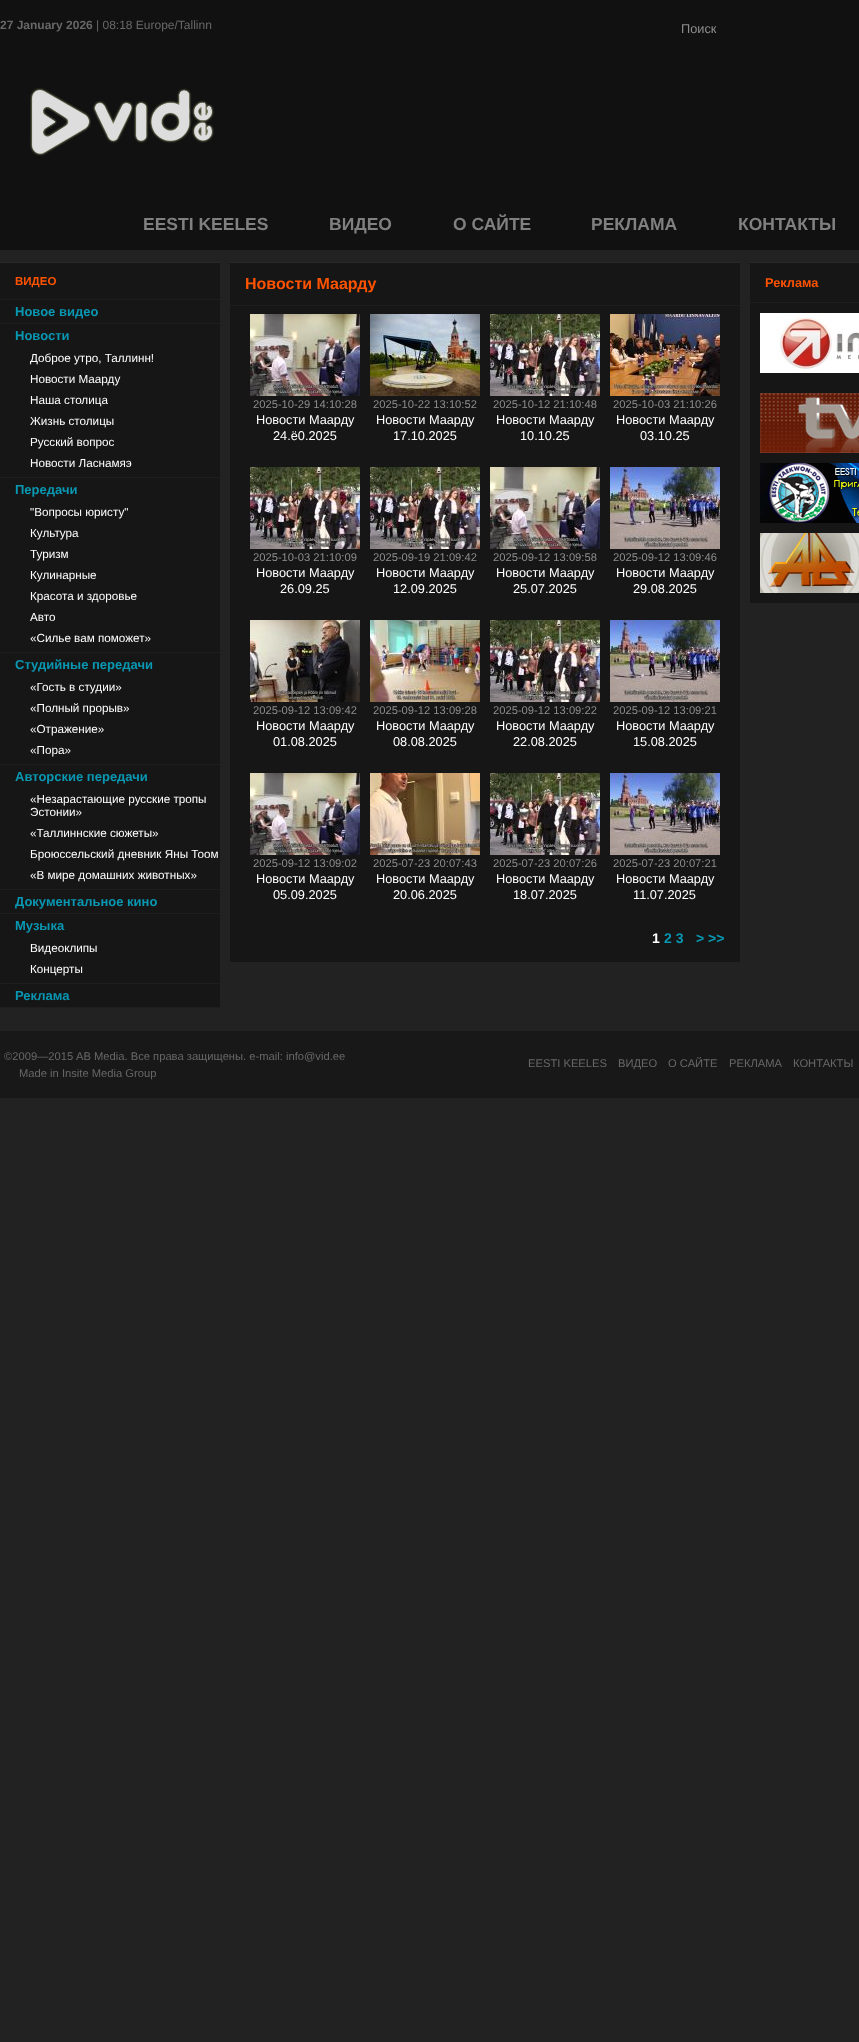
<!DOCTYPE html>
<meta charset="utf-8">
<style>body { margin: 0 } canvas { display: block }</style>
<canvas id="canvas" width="859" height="2042"></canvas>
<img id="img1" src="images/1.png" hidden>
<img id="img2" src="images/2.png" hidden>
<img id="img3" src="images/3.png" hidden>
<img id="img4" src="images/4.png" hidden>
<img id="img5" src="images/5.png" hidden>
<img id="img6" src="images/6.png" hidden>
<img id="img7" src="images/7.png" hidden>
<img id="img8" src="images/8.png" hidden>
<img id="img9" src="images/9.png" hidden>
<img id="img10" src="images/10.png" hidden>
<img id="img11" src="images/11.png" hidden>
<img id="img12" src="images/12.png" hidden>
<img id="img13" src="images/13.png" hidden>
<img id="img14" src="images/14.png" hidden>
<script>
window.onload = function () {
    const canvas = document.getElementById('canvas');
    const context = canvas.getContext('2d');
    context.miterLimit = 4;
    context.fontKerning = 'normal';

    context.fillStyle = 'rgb(34, 34, 34)';
    context.fillRect(0, 0, 859, 2042);
    context.fillStyle = 'rgb(17, 17, 17)';
    context.fillRect(0, 0, 859, 250);
    context.drawImage(document.getElementById('img1'), 30, 88, 184, 68);
    context.fillStyle = 'rgb(22, 22, 22)';
    context.fillRect(0, 263, 220, 744);
    context.fillStyle = 'rgb(41, 41, 41)';
    context.fillRect(0, 262, 220, 1);
    context.fillStyle = 'rgb(30, 30, 30)';
    context.fillRect(0, 299, 220, 1);
    context.fillRect(0, 323, 220, 1);
    context.fillRect(0, 477, 220, 1);
    context.fillRect(0, 652, 220, 1);
    context.fillRect(0, 764, 220, 1);
    context.fillRect(0, 889, 220, 1);
    context.fillRect(0, 913, 220, 1);
    context.fillRect(0, 983, 220, 1);
    context.fillRect(0, 1007, 220, 1);
    context.fillStyle = 'rgb(22, 22, 22)';
    context.fillRect(230, 263, 510, 699);
    context.fillStyle = 'rgb(41, 41, 41)';
    context.fillRect(230, 262, 510, 1);
    context.fillStyle = 'rgb(30, 30, 30)';
    context.fillRect(230, 305, 510, 1);
    context.drawImage(document.getElementById('img2'), 250, 314, 110, 82);
    context.drawImage(document.getElementById('img3'), 370, 314, 110, 82);
    context.drawImage(document.getElementById('img4'), 490, 314, 110, 82);
    context.drawImage(document.getElementById('img5'), 610, 314, 110, 82);
    context.drawImage(document.getElementById('img4'), 250, 467, 110, 82);
    context.drawImage(document.getElementById('img4'), 370, 467, 110, 82);
    context.drawImage(document.getElementById('img2'), 490, 467, 110, 82);
    context.drawImage(document.getElementById('img6'), 610, 467, 110, 82);
    context.drawImage(document.getElementById('img7'), 250, 620, 110, 82);
    context.drawImage(document.getElementById('img8'), 370, 620, 110, 82);
    context.drawImage(document.getElementById('img4'), 490, 620, 110, 82);
    context.drawImage(document.getElementById('img6'), 610, 620, 110, 82);
    context.drawImage(document.getElementById('img2'), 250, 773, 110, 82);
    context.drawImage(document.getElementById('img9'), 370, 773, 110, 82);
    context.drawImage(document.getElementById('img10'), 490, 773, 110, 82);
    context.drawImage(document.getElementById('img6'), 610, 773, 110, 82);
    context.fillStyle = 'rgb(22, 22, 22)';
    context.fillRect(750, 263, 109, 340);
    context.fillStyle = 'rgb(41, 41, 41)';
    context.fillRect(750, 262, 109, 1);
    context.fillStyle = 'rgb(30, 30, 30)';
    context.fillRect(750, 302, 109, 1);
    context.drawImage(document.getElementById('img11'), 760, 313, 99, 60);
    context.drawImage(document.getElementById('img12'), 760, 393, 99, 60);
    context.drawImage(document.getElementById('img13'), 760, 463, 99, 60);
    context.drawImage(document.getElementById('img14'), 760, 533, 99, 60);
    context.fillStyle = 'rgb(24, 24, 24)';
    context.fillRect(0, 1031, 859, 67);
    context.font = 'bold 12px Liberation Sans';
    context.fillStyle = 'rgb(104, 104, 104)';
    context.fillText('27 January 2026', 0, 29);
    context.font = '12px Liberation Sans';
    context.fillText('| 08:18 Europe/Tallinn', 96, 29);
    context.font = '12.75px Liberation Sans';
    context.fillStyle = 'rgb(141, 141, 141)';
    context.fillText('Поиск', 681, 33);
    context.font = 'bold 17.5px Liberation Sans';
    context.fillStyle = 'rgb(128, 128, 128)';
    context.fillText('EESTI KEELES', 143, 230);
    context.fillText('ВИДЕО', 329, 230);
    context.fillText('О САЙТЕ', 453, 230);
    context.fillText('РЕКЛАМА', 591, 230);
    context.fillText('КОНТАКТЫ', 738, 230);
    context.font = 'bold 11.5px Liberation Sans';
    context.fillStyle = 'rgb(255, 83, 0)';
    context.fillText('ВИДЕО', 15, 285);
    context.font = 'bold 13px Liberation Sans';
    context.fillStyle = 'rgb(9, 151, 178)';
    context.fillText('Новое видео', 15, 316);
    context.fillText('Новости', 15, 340);
    context.font = '11.7px Liberation Sans';
    context.fillStyle = 'rgb(255, 255, 255)';
    context.fillText('Доброе утро, Таллинн!', 30, 362);
    context.fillText('Новости Маарду', 30, 383);
    context.fillText('Наша столица', 30, 404);
    context.fillText('Жизнь столицы', 30, 425);
    context.fillText('Русский вопрос', 30, 446);
    context.fillText('Новости Ласнамяэ', 30, 467);
    context.font = 'bold 13px Liberation Sans';
    context.fillStyle = 'rgb(9, 151, 178)';
    context.fillText('Передачи', 15, 494);
    context.font = '11.7px Liberation Sans';
    context.fillStyle = 'rgb(255, 255, 255)';
    context.fillText('"Вопросы юристу"', 30, 516);
    context.fillText('Культура', 30, 537);
    context.fillText('Туризм', 30, 558);
    context.fillText('Кулинарные', 30, 579);
    context.fillText('Красота и здоровье', 30, 600);
    context.fillText('Авто', 30, 621);
    context.fillText('«Силье вам поможет»', 30, 642);
    context.font = 'bold 13px Liberation Sans';
    context.fillStyle = 'rgb(9, 151, 178)';
    context.fillText('Студийные передачи', 15, 669);
    context.font = '11.7px Liberation Sans';
    context.fillStyle = 'rgb(255, 255, 255)';
    context.fillText('«Гость в студии»', 30, 691);
    context.fillText('«Полный прорыв»', 30, 712);
    context.fillText('«Отражение»', 30, 733);
    context.fillText('«Пора»', 30, 754);
    context.font = 'bold 13px Liberation Sans';
    context.fillStyle = 'rgb(9, 151, 178)';
    context.fillText('Авторские передачи', 15, 781);
    context.font = '11.7px Liberation Sans';
    context.fillStyle = 'rgb(255, 255, 255)';
    context.fillText('«Незарастающие русские тропы', 30, 803);
    context.fillText('Эстонии»', 30, 816);
    context.fillText('«Таллиннские сюжеты»', 30, 837);
    context.fillText('Броюссельский дневник Яны Тоом', 30, 858);
    context.fillText('«В мире домашних животных»', 30, 879);
    context.font = 'bold 13px Liberation Sans';
    context.fillStyle = 'rgb(9, 151, 178)';
    context.fillText('Документальное кино', 15, 906);
    context.fillText('Музыка', 15, 930);
    context.font = '11.7px Liberation Sans';
    context.fillStyle = 'rgb(255, 255, 255)';
    context.fillText('Видеоклипы', 30, 952);
    context.fillText('Концерты', 30, 973);
    context.font = 'bold 13px Liberation Sans';
    context.fillStyle = 'rgb(9, 151, 178)';
    context.fillText('Реклама', 15, 1000);
    context.font = 'bold 16px Liberation Sans';
    context.fillStyle = 'rgb(255, 83, 0)';
    context.fillText('Новости Маарду', 245, 289);
    context.font = '11.2px Liberation Sans';
    context.fillStyle = 'rgb(141, 141, 141)';
    context.fillText('2025-10-29 14:10:28', 253, 408);
    context.font = '12.75px Liberation Sans';
    context.fillStyle = 'rgb(255, 255, 255)';
    context.fillText('Новости Маарду', 256, 424);
    context.fillText('24.ё0.2025', 273, 440);
    context.font = '11.2px Liberation Sans';
    context.fillStyle = 'rgb(141, 141, 141)';
    context.fillText('2025-10-22 13:10:52', 373, 408);
    context.font = '12.75px Liberation Sans';
    context.fillStyle = 'rgb(255, 255, 255)';
    context.fillText('Новости Маарду', 376, 424);
    context.fillText('17.10.2025', 393, 440);
    context.font = '11.2px Liberation Sans';
    context.fillStyle = 'rgb(141, 141, 141)';
    context.fillText('2025-10-12 21:10:48', 493, 408);
    context.font = '12.75px Liberation Sans';
    context.fillStyle = 'rgb(255, 255, 255)';
    context.fillText('Новости Маарду', 496, 424);
    context.fillText('10.10.25', 520, 440);
    context.font = '11.2px Liberation Sans';
    context.fillStyle = 'rgb(141, 141, 141)';
    context.fillText('2025-10-03 21:10:26', 613, 408);
    context.font = '12.75px Liberation Sans';
    context.fillStyle = 'rgb(255, 255, 255)';
    context.fillText('Новости Маарду', 616, 424);
    context.fillText('03.10.25', 640, 440);
    context.font = '11.2px Liberation Sans';
    context.fillStyle = 'rgb(141, 141, 141)';
    context.fillText('2025-10-03 21:10:09', 253, 561);
    context.font = '12.75px Liberation Sans';
    context.fillStyle = 'rgb(255, 255, 255)';
    context.fillText('Новости Маарду', 256, 577);
    context.fillText('26.09.25', 280, 593);
    context.font = '11.2px Liberation Sans';
    context.fillStyle = 'rgb(141, 141, 141)';
    context.fillText('2025-09-19 21:09:42', 373, 561);
    context.font = '12.75px Liberation Sans';
    context.fillStyle = 'rgb(255, 255, 255)';
    context.fillText('Новости Маарду', 376, 577);
    context.fillText('12.09.2025', 393, 593);
    context.font = '11.2px Liberation Sans';
    context.fillStyle = 'rgb(141, 141, 141)';
    context.fillText('2025-09-12 13:09:58', 493, 561);
    context.font = '12.75px Liberation Sans';
    context.fillStyle = 'rgb(255, 255, 255)';
    context.fillText('Новости Маарду', 496, 577);
    context.fillText('25.07.2025', 513, 593);
    context.font = '11.2px Liberation Sans';
    context.fillStyle = 'rgb(141, 141, 141)';
    context.fillText('2025-09-12 13:09:46', 613, 561);
    context.font = '12.75px Liberation Sans';
    context.fillStyle = 'rgb(255, 255, 255)';
    context.fillText('Новости Маарду', 616, 577);
    context.fillText('29.08.2025', 633, 593);
    context.font = '11.2px Liberation Sans';
    context.fillStyle = 'rgb(141, 141, 141)';
    context.fillText('2025-09-12 13:09:42', 253, 714);
    context.font = '12.75px Liberation Sans';
    context.fillStyle = 'rgb(255, 255, 255)';
    context.fillText('Новости Маарду', 256, 730);
    context.fillText('01.08.2025', 273, 746);
    context.font = '11.2px Liberation Sans';
    context.fillStyle = 'rgb(141, 141, 141)';
    context.fillText('2025-09-12 13:09:28', 373, 714);
    context.font = '12.75px Liberation Sans';
    context.fillStyle = 'rgb(255, 255, 255)';
    context.fillText('Новости Маарду', 376, 730);
    context.fillText('08.08.2025', 393, 746);
    context.font = '11.2px Liberation Sans';
    context.fillStyle = 'rgb(141, 141, 141)';
    context.fillText('2025-09-12 13:09:22', 493, 714);
    context.font = '12.75px Liberation Sans';
    context.fillStyle = 'rgb(255, 255, 255)';
    context.fillText('Новости Маарду', 496, 730);
    context.fillText('22.08.2025', 513, 746);
    context.font = '11.2px Liberation Sans';
    context.fillStyle = 'rgb(141, 141, 141)';
    context.fillText('2025-09-12 13:09:21', 613, 714);
    context.font = '12.75px Liberation Sans';
    context.fillStyle = 'rgb(255, 255, 255)';
    context.fillText('Новости Маарду', 616, 730);
    context.fillText('15.08.2025', 633, 746);
    context.font = '11.2px Liberation Sans';
    context.fillStyle = 'rgb(141, 141, 141)';
    context.fillText('2025-09-12 13:09:02', 253, 867);
    context.font = '12.75px Liberation Sans';
    context.fillStyle = 'rgb(255, 255, 255)';
    context.fillText('Новости Маарду', 256, 883);
    context.fillText('05.09.2025', 273, 899);
    context.font = '11.2px Liberation Sans';
    context.fillStyle = 'rgb(141, 141, 141)';
    context.fillText('2025-07-23 20:07:43', 373, 867);
    context.font = '12.75px Liberation Sans';
    context.fillStyle = 'rgb(255, 255, 255)';
    context.fillText('Новости Маарду', 376, 883);
    context.fillText('20.06.2025', 393, 899);
    context.font = '11.2px Liberation Sans';
    context.fillStyle = 'rgb(141, 141, 141)';
    context.fillText('2025-07-23 20:07:26', 493, 867);
    context.font = '12.75px Liberation Sans';
    context.fillStyle = 'rgb(255, 255, 255)';
    context.fillText('Новости Маарду', 496, 883);
    context.fillText('18.07.2025', 513, 899);
    context.font = '11.2px Liberation Sans';
    context.fillStyle = 'rgb(141, 141, 141)';
    context.fillText('2025-07-23 20:07:21', 613, 867);
    context.font = '12.75px Liberation Sans';
    context.fillStyle = 'rgb(255, 255, 255)';
    context.fillText('Новости Маарду', 616, 883);
    context.fillText('11.07.2025', 633, 899);
    context.font = 'bold 14px Liberation Sans';
    context.fillText('1', 652, 943);
    context.fillStyle = 'rgb(9, 151, 178)';
    context.fillText('2 3', 664, 943);
    context.fillText('> >>', 696, 943);
    context.font = 'bold 12.75px Liberation Sans';
    context.fillStyle = 'rgb(255, 83, 0)';
    context.fillText('Реклама', 765, 287);
    context.font = '11.2px Liberation Sans';
    context.fillStyle = 'rgb(104, 104, 104)';
    context.fillText('©2009—2015', 4, 1060);
    context.fillText('AB Media. Все права защищены. e-mail: info@vid.ee', 76, 1060);
    context.fillText('Made in Insite Media Group', 19, 1077);
    context.fillText('EESTI KEELES', 528, 1067);
    context.fillText('ВИДЕО', 618, 1067);
    context.fillText('О САЙТЕ', 668, 1067);
    context.fillText('РЕКЛАМА', 729, 1067);
    context.fillText('КОНТАКТЫ', 793, 1067);
};
</script>
